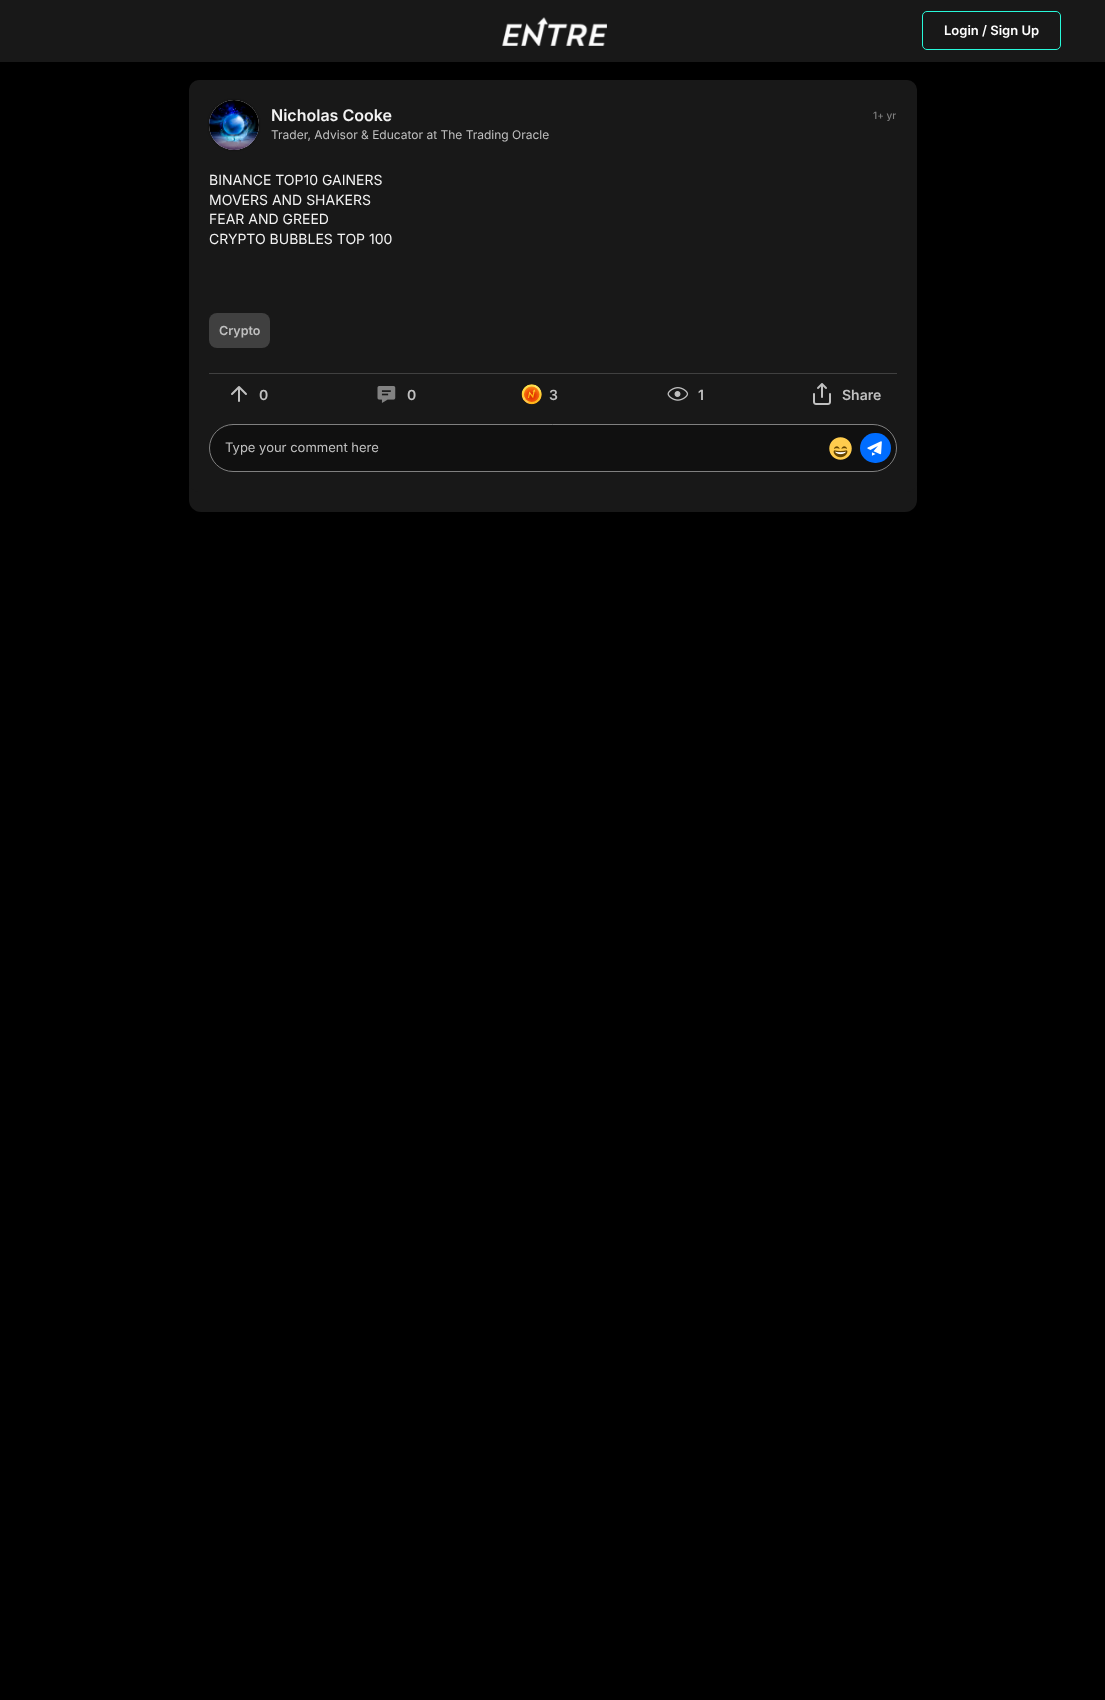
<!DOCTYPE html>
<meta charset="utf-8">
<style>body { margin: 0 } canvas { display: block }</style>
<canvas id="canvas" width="1105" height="1700"></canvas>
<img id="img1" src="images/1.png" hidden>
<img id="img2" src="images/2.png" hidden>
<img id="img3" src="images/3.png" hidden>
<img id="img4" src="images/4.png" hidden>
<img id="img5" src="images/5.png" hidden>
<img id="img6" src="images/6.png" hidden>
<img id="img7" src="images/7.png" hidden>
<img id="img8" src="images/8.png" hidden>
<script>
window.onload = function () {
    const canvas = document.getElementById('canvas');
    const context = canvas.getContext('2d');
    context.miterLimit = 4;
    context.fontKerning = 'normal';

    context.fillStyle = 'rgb(0, 0, 0)';
    context.fillRect(0, 0, 1105, 1700);
    context.fillStyle = 'rgb(24, 24, 24)';
    context.fillRect(0, 0, 1105, 62);
    context.drawImage(document.getElementById('img1'), 501, 17, 106, 29);
    context.beginPath();
    context.roundRect(922.5, 11.5, 138, 38, 4.5);
    context.strokeStyle = 'rgb(40, 249, 218)';
    context.stroke();
    context.beginPath();
    context.roundRect(189, 80, 728, 432, 12);
    context.fill();
    context.beginPath();
    context.roundRect(189, 80, 728, 412, 10);
    context.fill();
    context.fillStyle = 'rgba(0, 0, 0, 0.5)';
    context.filter = 'blur(1px)';
    context.beginPath();
    context.roundRect(209, 100, 50, 50, 25);
    context.fill();
    context.filter = 'none';
    context.fillStyle = 'rgb(242, 242, 242)';
    context.beginPath();
    context.arc(234, 125, 25, 0, 2 * Math.PI);
    context.fill();
    context.drawImage(document.getElementById('img2'), 209, 100, 50, 50);
    context.fillStyle = 'rgb(64, 64, 64)';
    context.fillRect(209, 373, 688, 1);
    context.beginPath();
    context.roundRect(209, 313, 61, 35, 8);
    context.fill();
    context.beginPath();
    context.moveTo(239, 401);
    context.lineTo(239, 387);
    context.moveTo(232, 394);
    context.lineTo(239, 387);
    context.lineTo(246, 394);
    context.strokeStyle = 'rgb(192, 192, 192)';
    context.lineWidth = 2;
    context.lineCap = 'round';
    context.lineJoin = 'round';
    context.stroke();
    context.drawImage(document.getElementById('img3'), 377, 386, 19, 17);
    context.drawImage(document.getElementById('img4'), 521, 384, 21, 21);
    context.drawImage(document.getElementById('img5'), 667, 387, 22, 14);
    context.drawImage(document.getElementById('img6'), 813, 383, 18, 22);
    context.fillStyle = 'rgb(16, 16, 16)';
    context.beginPath();
    context.roundRect(209.5, 424.5, 687, 47, 23.5);
    context.fill();
    context.strokeStyle = 'rgb(128, 128, 128)';
    context.lineWidth = 1;
    context.lineJoin = 'miter';
    context.stroke();
    context.drawImage(document.getElementById('img7'), 829, 437, 23, 23);
    context.fillStyle = 'rgb(0, 109, 255)';
    context.beginPath();
    context.roundRect(860, 433, 31, 30, 15);
    context.fill();
    context.drawImage(document.getElementById('img8'), 867, 441, 15, 15);
    context.font = '600 13px Inter';
    context.fillStyle = 'rgb(255, 255, 255)';
    context.fillText('Login / Sign Up', 944, 35);
    context.font = '600 16px Inter';
    context.fillStyle = 'rgb(242, 242, 242)';
    context.fillText('Nicholas Cooke', 271, 121);
    context.font = '12px Inter';
    context.fillStyle = 'rgb(192, 192, 192)';
    context.fillText('Trader, Advisor & Educator at The Trading Oracle', 271, 139);
    context.font = '500 10px Inter';
    context.fillStyle = 'rgb(128, 128, 128)';
    context.fillText('1+ yr', 873, 119);
    context.font = '14px Inter';
    context.fillStyle = 'rgb(242, 242, 242)';
    context.fillText('BINANCE TOP10 GAINERS', 209, 185);
    context.fillText('MOVERS AND SHAKERS', 209, 205);
    context.fillText('FEAR AND GREED', 209, 224);
    context.fillText('CRYPTO BUBBLES TOP 100', 209, 244);
    context.font = '600 12.5px Inter';
    context.fillStyle = 'rgb(192, 192, 192)';
    context.fillText('Crypto', 219, 335);
    context.font = '600 14px Inter';
    context.fillText('0', 259, 400);
    context.fillText('0', 407, 400);
    context.fillText('3', 549, 400);
    context.fillText('1', 698, 400);
    context.fillText('Share', 842, 400);
    context.font = '13px Inter';
    context.fillText('Type your comment here', 225, 452);
};
</script>
